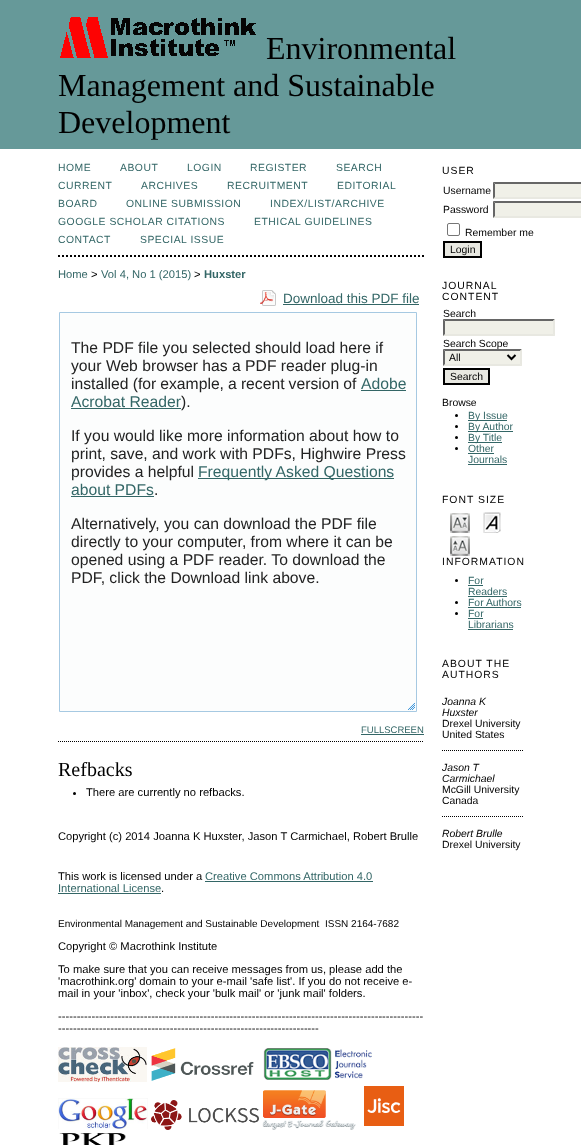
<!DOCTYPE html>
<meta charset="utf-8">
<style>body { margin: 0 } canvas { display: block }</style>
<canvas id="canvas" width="581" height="1145"></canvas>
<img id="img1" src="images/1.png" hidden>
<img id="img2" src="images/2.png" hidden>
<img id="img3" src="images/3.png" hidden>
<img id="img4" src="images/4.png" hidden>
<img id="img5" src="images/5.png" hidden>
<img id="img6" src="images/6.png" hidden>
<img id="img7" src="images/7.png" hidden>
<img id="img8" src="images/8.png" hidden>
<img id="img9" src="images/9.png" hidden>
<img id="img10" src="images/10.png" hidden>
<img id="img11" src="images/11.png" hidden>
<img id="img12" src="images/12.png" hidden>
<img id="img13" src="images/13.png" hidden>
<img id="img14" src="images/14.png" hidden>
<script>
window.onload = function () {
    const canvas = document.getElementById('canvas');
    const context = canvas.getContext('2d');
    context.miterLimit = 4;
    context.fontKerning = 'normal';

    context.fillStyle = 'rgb(255, 255, 255)';
    context.fillRect(0, 0, 581, 1145);
    context.fillStyle = 'rgb(102, 153, 153)';
    context.fillRect(0, 0, 581, 149);
    context.drawImage(document.getElementById('img1'), 60, 17, 196, 41);
    context.beginPath();
    context.moveTo(58, 256);
    context.lineTo(424, 256);
    context.strokeStyle = 'rgb(0, 0, 0)';
    context.lineWidth = 2;
    context.setLineDash([2, 2]);
    context.stroke();
    context.drawImage(document.getElementById('img2'), 260, 290, 16, 16);
    context.fillStyle = 'rgb(51, 102, 102)';
    context.fillRect(283, 304, 136, 1);
    context.fillStyle = 'rgb(252, 253, 253)';
    context.beginPath();
    context.rect(59.5, 312.5, 357, 399);
    context.fill();
    context.strokeStyle = 'rgb(166, 201, 226)';
    context.lineWidth = 1;
    context.setLineDash([]);
    context.stroke();
    context.fillStyle = 'rgb(51, 102, 102)';
    context.fillRect(361, 390, 45, 1);
    context.fillRect(71, 408, 110, 1);
    context.fillRect(198, 478, 196, 1);
    context.fillRect(71, 496, 83, 1);
    context.drawImage(document.getElementById('img3'), 408, 703, 7, 7);
    context.fillRect(361, 734, 63, 1);
    context.beginPath();
    context.moveTo(58, 741.5);
    context.lineTo(424, 741.5);
    context.strokeStyle = 'rgb(0, 0, 0)';
    context.setLineDash([1, 1]);
    context.stroke();
    context.fillStyle = 'rgb(0, 0, 0)';
    context.beginPath();
    context.arc(74.5, 793.5, 1.5, 0, 2 * Math.PI);
    context.fill();
    context.fillStyle = 'rgb(51, 102, 102)';
    context.fillRect(205, 881, 168, 1);
    context.fillRect(58, 893, 103, 1);
    context.drawImage(document.getElementById('img4'), 58, 1047, 89, 35);
    context.drawImage(document.getElementById('img5'), 151, 1048, 103, 33);
    context.drawImage(document.getElementById('img6'), 263, 1048, 109, 32);
    context.drawImage(document.getElementById('img7'), 58, 1098, 90, 31);
    context.drawImage(document.getElementById('img8'), 151, 1100, 108, 30);
    context.drawImage(document.getElementById('img9'), 262, 1090, 94, 40);
    context.drawImage(document.getElementById('img10'), 364, 1086, 40, 40);
    context.drawImage(document.getElementById('img11'), 59, 1133, 67, 12);
    context.fillStyle = 'rgb(240, 240, 232)';
    context.fillRect(493, 182, 88, 17);
    context.fillStyle = 'rgb(102, 102, 102)';
    context.beginPath();
    context.moveTo(493, 182);
    context.lineTo(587, 182);
    context.lineTo(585, 184);
    context.lineTo(495, 184);
    context.closePath();
    context.fill();
    context.fillStyle = 'rgb(232, 232, 225)';
    context.beginPath();
    context.moveTo(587, 199);
    context.lineTo(493, 199);
    context.lineTo(495, 197);
    context.lineTo(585, 197);
    context.closePath();
    context.fill();
    context.fillStyle = 'rgb(102, 102, 102)';
    context.beginPath();
    context.moveTo(493, 199);
    context.lineTo(493, 182);
    context.lineTo(495, 184);
    context.lineTo(495, 197);
    context.closePath();
    context.fill();
    context.fillStyle = 'rgb(240, 240, 232)';
    context.fillRect(493, 201, 88, 17);
    context.fillStyle = 'rgb(102, 102, 102)';
    context.beginPath();
    context.moveTo(493, 201);
    context.lineTo(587, 201);
    context.lineTo(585, 203);
    context.lineTo(495, 203);
    context.closePath();
    context.fill();
    context.fillStyle = 'rgb(232, 232, 225)';
    context.beginPath();
    context.moveTo(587, 218);
    context.lineTo(493, 218);
    context.lineTo(495, 216);
    context.lineTo(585, 216);
    context.closePath();
    context.fill();
    context.fillStyle = 'rgb(102, 102, 102)';
    context.beginPath();
    context.moveTo(493, 218);
    context.lineTo(493, 201);
    context.lineTo(495, 203);
    context.lineTo(495, 216);
    context.closePath();
    context.fill();
    context.beginPath();
    context.roundRect(447.5, 223.5, 12, 12, 1.5);
    context.strokeStyle = 'rgb(118, 118, 118)';
    context.setLineDash([]);
    context.stroke();
    context.fillStyle = 'rgb(232, 232, 225)';
    context.beginPath();
    context.rect(444, 242, 37, 15);
    context.fill();
    context.strokeStyle = 'rgb(0, 0, 0)';
    context.lineWidth = 2;
    context.stroke();
    context.fillStyle = 'rgb(240, 240, 232)';
    context.fillRect(443, 319, 112, 17);
    context.fillStyle = 'rgb(102, 102, 102)';
    context.beginPath();
    context.moveTo(443, 319);
    context.lineTo(555, 319);
    context.lineTo(553, 321);
    context.lineTo(445, 321);
    context.closePath();
    context.fill();
    context.fillStyle = 'rgb(232, 232, 225)';
    context.beginPath();
    context.moveTo(555, 319);
    context.lineTo(555, 336);
    context.lineTo(553, 334);
    context.lineTo(553, 321);
    context.closePath();
    context.fill();
    context.beginPath();
    context.moveTo(555, 336);
    context.lineTo(443, 336);
    context.lineTo(445, 334);
    context.lineTo(553, 334);
    context.closePath();
    context.fill();
    context.fillStyle = 'rgb(102, 102, 102)';
    context.beginPath();
    context.moveTo(443, 336);
    context.lineTo(443, 319);
    context.lineTo(445, 321);
    context.lineTo(445, 334);
    context.closePath();
    context.fill();
    context.fillStyle = 'rgb(232, 232, 225)';
    context.beginPath();
    context.rect(444, 369, 45, 15);
    context.fill();
    context.stroke();
    context.fillStyle = 'rgb(0, 0, 0)';
    context.beginPath();
    context.arc(456.5, 415.5, 1.5, 0, 2 * Math.PI);
    context.fill();
    context.fillStyle = 'rgb(51, 102, 102)';
    context.fillRect(468, 420, 39, 1);
    context.fillStyle = 'rgb(0, 0, 0)';
    context.beginPath();
    context.arc(456.5, 426.5, 1.5, 0, 2 * Math.PI);
    context.fill();
    context.fillStyle = 'rgb(51, 102, 102)';
    context.fillRect(468, 431, 45, 1);
    context.fillStyle = 'rgb(0, 0, 0)';
    context.beginPath();
    context.arc(456.5, 437.5, 1.5, 0, 2 * Math.PI);
    context.fill();
    context.fillStyle = 'rgb(51, 102, 102)';
    context.fillRect(468, 442, 34, 1);
    context.fillStyle = 'rgb(0, 0, 0)';
    context.beginPath();
    context.arc(456.5, 448.5, 1.5, 0, 2 * Math.PI);
    context.fill();
    context.fillStyle = 'rgb(51, 102, 102)';
    context.fillRect(468, 453, 26, 1);
    context.fillRect(468, 464, 39, 1);
    context.drawImage(document.getElementById('img12'), 450, 513, 20, 20);
    context.drawImage(document.getElementById('img13'), 483, 512, 18, 21);
    context.drawImage(document.getElementById('img14'), 450, 536, 20, 20);
    context.fillStyle = 'rgb(0, 0, 0)';
    context.beginPath();
    context.arc(456.5, 580.5, 1.5, 0, 2 * Math.PI);
    context.fill();
    context.fillStyle = 'rgb(51, 102, 102)';
    context.fillRect(468, 585, 15, 1);
    context.fillRect(468, 596, 39, 1);
    context.fillStyle = 'rgb(0, 0, 0)';
    context.beginPath();
    context.arc(456.5, 602.5, 1.5, 0, 2 * Math.PI);
    context.fill();
    context.fillStyle = 'rgb(51, 102, 102)';
    context.fillRect(468, 607, 53, 1);
    context.fillStyle = 'rgb(0, 0, 0)';
    context.beginPath();
    context.arc(456.5, 613.5, 1.5, 0, 2 * Math.PI);
    context.fill();
    context.fillStyle = 'rgb(51, 102, 102)';
    context.fillRect(468, 618, 15, 1);
    context.fillRect(468, 629, 45, 1);
    context.beginPath();
    context.moveTo(442, 750.5);
    context.lineTo(523, 750.5);
    context.lineWidth = 1;
    context.setLineDash([1, 1]);
    context.stroke();
    context.beginPath();
    context.moveTo(442, 816.5);
    context.lineTo(523, 816.5);
    context.stroke();
    context.font = '32px Liberation Serif';
    context.fillStyle = 'rgb(0, 0, 0)';
    context.fillText('Environmental', 266, 59);
    context.fillText('Management and Sustainable', 58, 96);
    context.fillText('Development', 58, 133);
    context.letterSpacing = '0.5px';
    context.font = '10.4px Liberation Sans';
    context.fillStyle = 'rgb(51, 102, 102)';
    context.fillText('HOME', 58, 171);
    context.fillText('ABOUT', 120, 171);
    context.fillText('LOGIN', 187, 171);
    context.fillText('REGISTER', 250, 171);
    context.fillText('SEARCH', 336, 171);
    context.fillText('CURRENT', 58, 189);
    context.fillText('ARCHIVES', 141, 189);
    context.fillText('RECRUITMENT', 227, 189);
    context.fillText('EDITORIAL', 337, 189);
    context.fillText('BOARD', 58, 207);
    context.fillText('ONLINE SUBMISSION', 126, 207);
    context.fillText('INDEX/LIST/ARCHIVE', 270, 207);
    context.fillText('GOOGLE SCHOLAR CITATIONS', 58, 225);
    context.fillText('ETHICAL GUIDELINES', 254, 225);
    context.fillText('CONTACT', 58, 243);
    context.fillText('SPECIAL ISSUE', 140, 243);
    context.letterSpacing = '0px';
    context.font = '11.2px Liberation Sans';
    context.fillText('Home', 58, 278);
    context.fillStyle = 'rgb(0, 0, 0)';
    context.fillText('>', 91, 278);
    context.fillStyle = 'rgb(51, 102, 102)';
    context.fillText('Vol 4, No 1 (2015)', 101, 278);
    context.fillStyle = 'rgb(0, 0, 0)';
    context.fillText('>', 194, 278);
    context.font = 'bold 11.2px Liberation Sans';
    context.fillStyle = 'rgb(51, 102, 102)';
    context.fillText('Huxster', 204, 278);
    context.font = '13.5px Liberation Sans';
    context.fillText('Download this PDF file', 283, 303);
    context.font = '15.7px Liberation Sans';
    context.fillStyle = 'rgb(34, 34, 34)';
    context.fillText('The PDF file you selected should load here if', 71, 353);
    context.fillText('your Web browser has a PDF reader plug-in', 71, 371);
    context.wordSpacing = '-0.25px';
    context.fillText('installed (for example, a recent version of', 71, 389);
    context.wordSpacing = '0px';
    context.fillStyle = 'rgb(51, 102, 102)';
    context.fillText('Adobe', 361, 389);
    context.fillText('Acrobat Reader', 71, 407);
    context.fillStyle = 'rgb(34, 34, 34)';
    context.fillText(').', 181, 407);
    context.fillText('If you would like more information about how to', 71, 441);
    context.fillText('print, save, and work with PDFs, Highwire Press', 71, 459);
    context.fillText('provides a helpful', 71, 477);
    context.fillStyle = 'rgb(51, 102, 102)';
    context.fillText('Frequently Asked Questions', 198, 477);
    context.fillText('about PDFs', 71, 495);
    context.fillStyle = 'rgb(34, 34, 34)';
    context.fillText('.', 154, 495);
    context.fillText('Alternatively, you can download the PDF file', 71, 529);
    context.fillText('directly to your computer, from where it can be', 71, 547);
    context.fillText('opened using a PDF reader. To download the', 71, 565);
    context.fillText('PDF, click the Download link above.', 71, 583);
    context.font = '9.5px Liberation Sans';
    context.fillStyle = 'rgb(51, 102, 102)';
    context.fillText('FULLSCREEN', 361, 733);
    context.font = '20px Liberation Serif';
    context.fillStyle = 'rgb(0, 0, 0)';
    context.fillText('Refbacks', 58, 776);
    context.font = '11.2px Liberation Sans';
    context.fillText('There are currently no refbacks.', 86, 796);
    context.fillText('Copyright (c) 2014 Joanna K Huxster, Jason T Carmichael, Robert Brulle', 58, 840);
    context.fillText('This work is licensed under a', 58, 880);
    context.fillStyle = 'rgb(51, 102, 102)';
    context.fillText('Creative Commons Attribution 4.0', 205, 880);
    context.fillText('International License', 58, 892);
    context.fillStyle = 'rgb(0, 0, 0)';
    context.fillText('.', 161, 892);
    context.font = '10px Liberation Sans';
    context.fillText('Environmental Management and Sustainable Development', 58, 927);
    context.fillText('ISSN 2164-7682', 325, 927);
    context.font = '11.2px Liberation Sans';
    context.fillText('Copyright © Macrothink Institute', 58, 950);
    context.fillText('To make sure that you can receive messages from us, please add the', 58, 973);
    context.fillText('\'macrothink.org\' domain to your e-mail \'safe list\'. If you do not receive e-', 58, 985);
    context.fillText('mail in your \'inbox\', check your \'bulk mail\' or \'junk mail\' folders.', 58, 997);
    context.fillText('--------------------------------------------------------------------------------------------------', 58, 1020);
    context.fillText('----------------------------------------------------------------------', 58, 1032);
    context.letterSpacing = '1px';
    context.font = '10.4px Liberation Sans';
    context.fillText('USER', 442, 174);
    context.letterSpacing = '0px';
    context.fillText('Username', 443, 194);
    context.fillText('Password', 443, 213);
    context.fillText('Remember me', 465, 236);
    context.fillText('Login', 450, 253);
    context.letterSpacing = '1px';
    context.fillText('JOURNAL', 442, 289);
    context.fillText('CONTENT', 442, 300);
    context.letterSpacing = '0px';
    context.fillText('Search', 443, 317);
    context.fillText('Search Scope', 443, 347);
    context.fillStyle = 'rgb(240, 240, 232)';
    context.fillRect(443, 349, 79, 17);
    context.fillStyle = 'rgb(102, 102, 102)';
    context.beginPath();
    context.moveTo(443, 349);
    context.lineTo(522, 349);
    context.lineTo(520, 351);
    context.lineTo(445, 351);
    context.closePath();
    context.fill();
    context.fillStyle = 'rgb(232, 232, 225)';
    context.beginPath();
    context.moveTo(522, 349);
    context.lineTo(522, 366);
    context.lineTo(520, 364);
    context.lineTo(520, 351);
    context.closePath();
    context.fill();
    context.beginPath();
    context.moveTo(522, 366);
    context.lineTo(443, 366);
    context.lineTo(445, 364);
    context.lineTo(520, 364);
    context.closePath();
    context.fill();
    context.fillStyle = 'rgb(102, 102, 102)';
    context.beginPath();
    context.moveTo(443, 366);
    context.lineTo(443, 349);
    context.lineTo(445, 351);
    context.lineTo(445, 364);
    context.closePath();
    context.fill();
    context.beginPath();
    context.moveTo(507.5, 355);
    context.lineTo(511.5, 359);
    context.lineTo(515.5, 355);
    context.lineWidth = 2;
    context.setLineDash([]);
    context.stroke();
    context.fillStyle = 'rgb(0, 0, 0)';
    context.fillText('All', 449, 361);
    context.fillText('Search', 450, 380);
    context.fillText('Browse', 442, 406);
    context.fillStyle = 'rgb(51, 102, 102)';
    context.fillText('By Issue', 468, 419);
    context.fillText('By Author', 468, 430);
    context.fillText('By Title', 468, 441);
    context.fillText('Other', 468, 452);
    context.fillText('Journals', 468, 463);
    context.letterSpacing = '1px';
    context.fillStyle = 'rgb(0, 0, 0)';
    context.fillText('FONT SIZE', 442, 503);
    context.fillText('INFORMATION', 442, 565);
    context.letterSpacing = '0px';
    context.fillStyle = 'rgb(51, 102, 102)';
    context.fillText('For', 468, 584);
    context.fillText('Readers', 468, 595);
    context.fillText('For Authors', 468, 606);
    context.fillText('For', 468, 617);
    context.fillText('Librarians', 468, 628);
    context.letterSpacing = '1px';
    context.fillStyle = 'rgb(0, 0, 0)';
    context.fillText('ABOUT THE', 442, 667);
    context.fillText('AUTHORS', 442, 678);
    context.letterSpacing = '0px';
    context.font = 'italic 10.4px Liberation Sans';
    context.fillText('Joanna K', 442, 705);
    context.fillText('Huxster', 442, 716);
    context.font = '10.4px Liberation Sans';
    context.fillText('Drexel University', 442, 727);
    context.fillText('United States', 442, 738);
    context.font = 'italic 10.4px Liberation Sans';
    context.fillText('Jason T', 442, 771);
    context.fillText('Carmichael', 442, 782);
    context.font = '10.4px Liberation Sans';
    context.fillText('McGill University', 442, 793);
    context.fillText('Canada', 442, 804);
    context.font = 'italic 10.4px Liberation Sans';
    context.fillText('Robert Brulle', 442, 837);
    context.font = '10.4px Liberation Sans';
    context.fillText('Drexel University', 442, 848);
};
</script>
